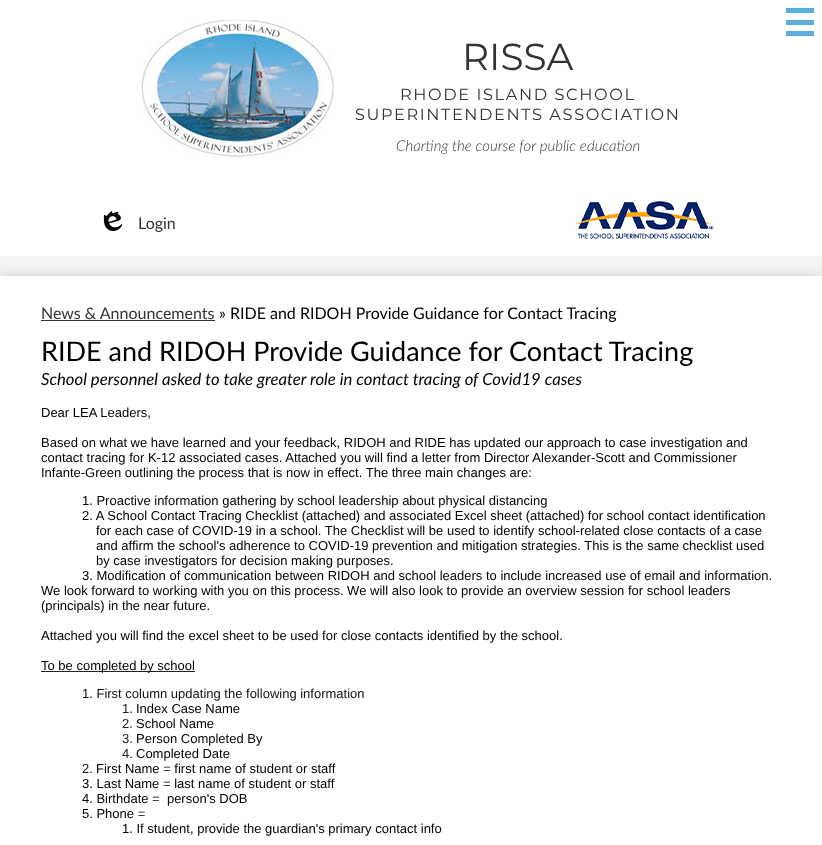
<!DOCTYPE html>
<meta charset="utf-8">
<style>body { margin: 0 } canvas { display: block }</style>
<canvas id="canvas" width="822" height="845"></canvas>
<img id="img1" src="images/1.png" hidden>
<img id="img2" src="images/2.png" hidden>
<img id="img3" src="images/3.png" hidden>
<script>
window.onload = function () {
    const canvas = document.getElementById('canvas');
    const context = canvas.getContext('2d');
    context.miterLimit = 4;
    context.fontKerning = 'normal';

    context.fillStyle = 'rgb(245, 245, 245)';
    context.fillRect(0, 0, 822, 845);
    context.fillStyle = 'rgba(0, 0, 0, 0.15)';
    context.filter = 'blur(7.5px)';
    context.beginPath();
    context.rect(0, 276, 822, 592);
    context.fill();
    context.filter = 'none';
    context.fillStyle = 'rgb(255, 255, 255)';
    context.fillRect(0, 0, 822, 256);
    context.fillStyle = 'rgb(90, 174, 221)';
    context.fillRect(786, 8, 28, 5);
    context.fillRect(786, 20, 28, 5);
    context.fillRect(786, 31, 28, 5);
    context.drawImage(document.getElementById('img1'), 141, 20, 194, 139);
    context.drawImage(document.getElementById('img2'), 103, 211, 20, 20);
    context.drawImage(document.getElementById('img3'), 574, 201, 140, 38);
    context.fillStyle = 'rgb(255, 255, 255)';
    context.fillRect(0, 276, 822, 569);
    context.fillStyle = 'rgb(51, 51, 51)';
    context.fillRect(41, 320, 174, 1);
    context.fillStyle = 'rgb(34, 34, 34)';
    context.fillRect(41, 671, 154, 1);
    context.font = '37.5px Montserrat';
    context.fillStyle = 'rgb(51, 51, 51)';
    context.fillText('RISSA', 462, 70);
    context.letterSpacing = '1.6px';
    context.font = '16.2px Montserrat';
    context.fillText('RHODE ISLAND SCHOOL', 400, 100);
    context.fillText('SUPERINTENDENTS ASSOCIATION', 355, 120);
    context.letterSpacing = '0px';
    context.font = 'italic 300 15px Lato';
    context.fillText('Charting the course for public education', 396, 151);
    context.font = '16px Lato';
    context.fillText('Login', 138, 229);
    context.fillText('News & Announcements', 41, 319);
    context.fillStyle = 'rgb(0, 0, 0)';
    context.fillText('» RIDE and RIDOH Provide Guidance for Contact Tracing', 219, 319);
    context.font = '27px Lato';
    context.fillText('RIDE and RIDOH Provide Guidance for Contact Tracing', 41, 361);
    context.font = 'italic 16.7px Lato';
    context.fillText('School personnel asked to take greater role in contact tracing of Covid19 cases', 41, 385);
    context.font = '13px Liberation Sans';
    context.fillText('Dear LEA Leaders,', 41, 417);
    context.fillText('Based on what we have learned and your feedback, RIDOH and RIDE has updated our approach to case investigation and', 41, 447);
    context.fillText('contact tracing for K-12 associated cases. Attached you will find a letter from Director Alexander-Scott and Commissioner', 41, 462);
    context.fillText('Infante-Green outlining the process that is now in effect. The three main changes are:', 41, 477);
    context.fillText('1. Proactive information gathering by school leadership about physical distancing', 82, 505);
    context.fillText('2. A School Contact Tracing Checklist (attached) and associated Excel sheet (attached) for school contact identification', 82, 520);
    context.fillText('for each case of COVID-19 in a school. The Checklist will be used to identify school-related close contacts of a case', 96, 535);
    context.fillText('and affirm the school\'s adherence to COVID-19 prevention and mitigation strategies. This is the same checklist used', 96, 550);
    context.fillText('by case investigators for decision making purposes.', 96, 565);
    context.fillText('3. Modification of communication between RIDOH and school leaders to include increased use of email and information.', 82, 580);
    context.fillText('We look forward to working with you on this process. We will also look to provide an overview session for school leaders', 41, 595);
    context.fillText('(principals) in the near future.', 41, 610);
    context.fillText('Attached you will find the excel sheet to be used for close contacts identified by the school.', 41, 640);
    context.fillText('To be completed by school', 41, 670);
    context.fillStyle = 'rgb(18, 18, 18)';
    context.fillText('1. First column updating the following information', 82, 698);
    context.fillStyle = 'rgb(34, 34, 34)';
    context.fillText('1.', 122, 713);
    context.fillStyle = 'rgb(0, 0, 0)';
    context.fillText('Index Case Name', 136, 713);
    context.fillStyle = 'rgb(34, 34, 34)';
    context.fillText('2.', 122, 728);
    context.fillStyle = 'rgb(0, 0, 0)';
    context.fillText('School Name', 136, 728);
    context.fillStyle = 'rgb(34, 34, 34)';
    context.fillText('3.', 122, 743);
    context.fillStyle = 'rgb(0, 0, 0)';
    context.fillText('Person Completed By', 136, 743);
    context.fillStyle = 'rgb(34, 34, 34)';
    context.fillText('4.', 122, 758);
    context.fillStyle = 'rgb(0, 0, 0)';
    context.fillText('Completed Date', 136, 758);
    context.fillStyle = 'rgb(18, 18, 18)';
    context.fillText('2.', 82, 773);
    context.fillStyle = 'rgb(0, 0, 0)';
    context.fillText('First Name = first name of student or staff', 96, 773);
    context.fillText('3. Last Name = last name of student or staff', 82, 788);
    context.fillText('4. Birthdate =  person\'s DOB', 82, 803);
    context.fillText('5. Phone =', 82, 818);
    context.fillText('1. If student, provide the guardian\'s primary contact info', 122, 833);
};
</script>
